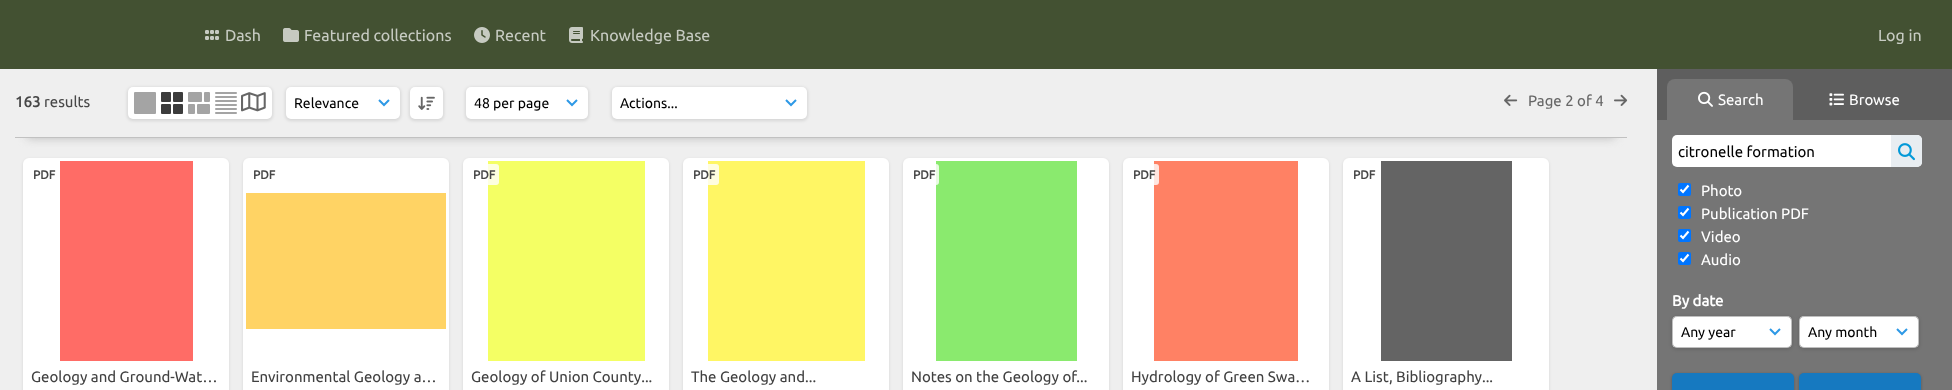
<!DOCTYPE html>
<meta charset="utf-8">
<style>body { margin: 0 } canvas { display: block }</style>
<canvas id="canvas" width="1952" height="390"></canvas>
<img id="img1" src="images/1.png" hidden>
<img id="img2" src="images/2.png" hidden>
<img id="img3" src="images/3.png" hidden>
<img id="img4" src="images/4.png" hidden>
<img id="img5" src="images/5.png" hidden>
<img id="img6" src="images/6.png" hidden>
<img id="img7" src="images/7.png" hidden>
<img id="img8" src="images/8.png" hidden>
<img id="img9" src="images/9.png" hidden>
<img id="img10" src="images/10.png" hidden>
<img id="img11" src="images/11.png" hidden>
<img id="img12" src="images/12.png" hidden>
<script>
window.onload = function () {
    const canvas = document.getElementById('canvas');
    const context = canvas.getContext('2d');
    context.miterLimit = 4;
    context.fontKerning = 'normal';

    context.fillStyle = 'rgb(239, 239, 239)';
    context.fillRect(0, 0, 1952, 390);
    context.fillStyle = 'rgb(67, 81, 50)';
    context.fillRect(0, 0, 1952, 69);
    context.drawImage(document.getElementById('img1'), 205, 30, 14, 10);
    context.drawImage(document.getElementById('img2'), 283, 28, 16, 14);
    context.drawImage(document.getElementById('img3'), 474, 27, 16, 16);
    context.drawImage(document.getElementById('img4'), 569, 27, 14, 16);
    context.save();
    context.beginPath();
    context.rect(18, 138, 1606, 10);
    context.clip();
    context.fillStyle = 'rgb(187, 187, 187)';
    context.filter = 'blur(5px)';
    context.beginPath();
    context.rect(27, 93, 1588, 45);
    context.fill();
    context.filter = 'none';
    context.restore();
    context.fillStyle = 'rgb(193, 193, 193)';
    context.fillRect(15, 137, 1612, 1);
    context.fillStyle = 'rgba(0, 0, 0, 0.1)';
    context.filter = 'blur(1.5px)';
    context.beginPath();
    context.roundRect(127, 87, 146, 34, 6);
    context.fill();
    context.filter = 'none';
    context.fillStyle = 'rgb(255, 255, 255)';
    context.beginPath();
    context.roundRect(128, 87, 144, 32, 5);
    context.fill();
    context.fillStyle = 'rgb(164, 164, 164)';
    context.beginPath();
    context.roundRect(134, 92, 22, 22, 1);
    context.fill();
    context.fillStyle = 'rgb(60, 60, 60)';
    context.beginPath();
    context.roundRect(173, 92, 10, 10, 1);
    context.fill();
    context.beginPath();
    context.roundRect(161, 104, 10, 10, 1);
    context.fill();
    context.beginPath();
    context.roundRect(173, 104, 10, 10, 1);
    context.fill();
    context.beginPath();
    context.roundRect(161, 92, 10, 10, 1);
    context.fill();
    context.fillStyle = 'rgb(164, 164, 164)';
    context.beginPath();
    context.roundRect(188, 92, 14, 10, 1);
    context.fill();
    context.beginPath();
    context.roundRect(204, 92, 6, 10, 1);
    context.fill();
    context.beginPath();
    context.roundRect(197, 104, 13, 10, 1);
    context.fill();
    context.beginPath();
    context.roundRect(188, 104, 7, 10, 1);
    context.fill();
    context.drawImage(document.getElementById('img5'), 215, 92, 22, 22);
    context.drawImage(document.getElementById('img6'), 241, 92, 25, 20);
    context.fillStyle = 'rgba(0, 0, 0, 0.1)';
    context.filter = 'blur(1.5px)';
    context.beginPath();
    context.roundRect(285, 87, 116, 34, 6);
    context.fill();
    context.filter = 'none';
    context.fillStyle = 'rgb(255, 255, 255)';
    context.beginPath();
    context.roundRect(286, 87, 114, 32, 5);
    context.fill();
    context.beginPath();
    context.moveTo(389, 100);
    context.lineTo(384, 105);
    context.lineTo(379, 100);
    context.strokeStyle = 'rgb(46, 153, 230)';
    context.lineWidth = 2;
    context.stroke();
    context.fillStyle = 'rgba(0, 0, 0, 0.1)';
    context.filter = 'blur(1.5px)';
    context.beginPath();
    context.roundRect(409, 87, 35, 34, 6);
    context.fill();
    context.filter = 'none';
    context.fillStyle = 'rgb(255, 255, 255)';
    context.beginPath();
    context.roundRect(410, 87, 33, 32, 5);
    context.fill();
    context.drawImage(document.getElementById('img7'), 418, 96, 17, 14);
    context.fillStyle = 'rgba(0, 0, 0, 0.1)';
    context.filter = 'blur(1.5px)';
    context.beginPath();
    context.roundRect(465, 87, 124, 34, 6);
    context.fill();
    context.filter = 'none';
    context.fillStyle = 'rgb(255, 255, 255)';
    context.beginPath();
    context.roundRect(466, 87, 122, 32, 5);
    context.fill();
    context.beginPath();
    context.moveTo(577, 100);
    context.lineTo(572, 105);
    context.lineTo(567, 100);
    context.stroke();
    context.fillStyle = 'rgba(0, 0, 0, 0.1)';
    context.filter = 'blur(1.5px)';
    context.beginPath();
    context.roundRect(611, 87, 197, 34, 6);
    context.fill();
    context.filter = 'none';
    context.fillStyle = 'rgb(255, 255, 255)';
    context.beginPath();
    context.roundRect(612, 87, 195, 32, 5);
    context.fill();
    context.beginPath();
    context.moveTo(796, 100);
    context.lineTo(791, 105);
    context.lineTo(786, 100);
    context.stroke();
    context.drawImage(document.getElementById('img8'), 1504, 94, 14, 12);
    context.drawImage(document.getElementById('img9'), 1614, 94, 14, 12);
    context.fillStyle = 'rgba(0, 0, 0, 0.1)';
    context.filter = 'blur(1.5px)';
    context.beginPath();
    context.roundRect(23, 159, 206, 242, 6);
    context.fill();
    context.filter = 'none';
    context.fillStyle = 'rgb(255, 255, 255)';
    context.beginPath();
    context.roundRect(23, 158, 206, 232, [6, 6, 0, 0]);
    context.fill();
    context.fillStyle = 'rgb(255, 108, 102)';
    context.fillRect(60, 161, 133, 200);
    context.fillStyle = 'rgba(0, 0, 0, 0.1)';
    context.filter = 'blur(1.5px)';
    context.beginPath();
    context.roundRect(243, 159, 206, 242, 6);
    context.fill();
    context.filter = 'none';
    context.fillStyle = 'rgb(255, 255, 255)';
    context.beginPath();
    context.roundRect(243, 158, 206, 232, [6, 6, 0, 0]);
    context.fill();
    context.fillStyle = 'rgb(255, 211, 100)';
    context.fillRect(246, 193, 200, 136);
    context.fillStyle = 'rgba(0, 0, 0, 0.1)';
    context.filter = 'blur(1.5px)';
    context.beginPath();
    context.roundRect(463, 159, 206, 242, 6);
    context.fill();
    context.filter = 'none';
    context.fillStyle = 'rgb(255, 255, 255)';
    context.beginPath();
    context.roundRect(463, 158, 206, 232, [6, 6, 0, 0]);
    context.fill();
    context.fillStyle = 'rgb(244, 255, 100)';
    context.fillRect(488, 161, 157, 200);
    context.fillStyle = 'rgba(255, 255, 255, 0.8)';
    context.beginPath();
    context.roundRect(469, 164, 30, 21, 3);
    context.fill();
    context.fillStyle = 'rgba(0, 0, 0, 0.1)';
    context.filter = 'blur(1.5px)';
    context.beginPath();
    context.roundRect(683, 159, 206, 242, 6);
    context.fill();
    context.filter = 'none';
    context.fillStyle = 'rgb(255, 255, 255)';
    context.beginPath();
    context.roundRect(683, 158, 206, 232, [6, 6, 0, 0]);
    context.fill();
    context.fillStyle = 'rgb(255, 246, 100)';
    context.fillRect(708, 161, 157, 200);
    context.fillStyle = 'rgba(255, 255, 255, 0.8)';
    context.beginPath();
    context.roundRect(689, 164, 30, 21, 3);
    context.fill();
    context.fillStyle = 'rgba(0, 0, 0, 0.1)';
    context.filter = 'blur(1.5px)';
    context.beginPath();
    context.roundRect(903, 159, 206, 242, 6);
    context.fill();
    context.filter = 'none';
    context.fillStyle = 'rgb(255, 255, 255)';
    context.beginPath();
    context.roundRect(903, 158, 206, 232, [6, 6, 0, 0]);
    context.fill();
    context.fillStyle = 'rgb(138, 234, 110)';
    context.fillRect(936, 161, 141, 200);
    context.fillStyle = 'rgba(255, 255, 255, 0.8)';
    context.beginPath();
    context.roundRect(909, 164, 30, 21, 3);
    context.fill();
    context.fillStyle = 'rgba(0, 0, 0, 0.1)';
    context.filter = 'blur(1.5px)';
    context.beginPath();
    context.roundRect(1123, 159, 206, 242, 6);
    context.fill();
    context.filter = 'none';
    context.fillStyle = 'rgb(255, 255, 255)';
    context.beginPath();
    context.roundRect(1123, 158, 206, 232, [6, 6, 0, 0]);
    context.fill();
    context.fillStyle = 'rgb(255, 129, 100)';
    context.fillRect(1154, 161, 144, 200);
    context.fillStyle = 'rgba(255, 255, 255, 0.8)';
    context.beginPath();
    context.roundRect(1129, 164, 30, 21, 3);
    context.fill();
    context.fillStyle = 'rgba(0, 0, 0, 0.1)';
    context.filter = 'blur(1.5px)';
    context.beginPath();
    context.roundRect(1343, 159, 206, 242, 6);
    context.fill();
    context.filter = 'none';
    context.fillStyle = 'rgb(255, 255, 255)';
    context.beginPath();
    context.roundRect(1343, 158, 206, 232, [6, 6, 0, 0]);
    context.fill();
    context.fillStyle = 'rgb(100, 100, 100)';
    context.fillRect(1381, 161, 131, 200);
    context.fillStyle = 'rgb(117, 117, 117)';
    context.fillRect(1657, 120, 295, 270);
    context.fillStyle = 'rgb(94, 94, 94)';
    context.fillRect(1657, 69, 295, 51);
    context.fillStyle = 'rgb(117, 117, 117)';
    context.beginPath();
    context.roundRect(1667, 79, 126, 41, [8, 8, 0, 0]);
    context.fill();
    context.drawImage(document.getElementById('img10'), 1698, 91, 15, 16);
    context.drawImage(document.getElementById('img11'), 1829, 93, 15, 13);
    context.fillStyle = 'rgb(255, 255, 255)';
    context.beginPath();
    context.roundRect(1672, 135, 250, 32, 5);
    context.fill();
    context.fillStyle = 'rgb(232, 237, 241)';
    context.beginPath();
    context.roundRect(1891, 135, 31, 32, [0, 5, 5, 0]);
    context.fill();
    context.drawImage(document.getElementById('img12'), 1898, 143, 17, 18);
    context.fillStyle = 'rgb(0, 117, 255)';
    context.beginPath();
    context.roundRect(1678, 183, 13, 13, 2);
    context.fill();
    context.beginPath();
    context.moveTo(1680.5, 189.5);
    context.lineTo(1683, 192);
    context.lineTo(1688.5, 185.5);
    context.strokeStyle = 'rgb(255, 255, 255)';
    context.lineWidth = 2.1;
    context.stroke();
    context.beginPath();
    context.roundRect(1678, 206, 13, 13, 2);
    context.fill();
    context.beginPath();
    context.moveTo(1680.5, 212.5);
    context.lineTo(1683, 215);
    context.lineTo(1688.5, 208.5);
    context.stroke();
    context.beginPath();
    context.roundRect(1678, 229, 13, 13, 2);
    context.fill();
    context.beginPath();
    context.moveTo(1680.5, 235.5);
    context.lineTo(1683, 238);
    context.lineTo(1688.5, 231.5);
    context.stroke();
    context.beginPath();
    context.roundRect(1678, 252, 13, 13, 2);
    context.fill();
    context.beginPath();
    context.moveTo(1680.5, 258.5);
    context.lineTo(1683, 261);
    context.lineTo(1688.5, 254.5);
    context.stroke();
    context.fillStyle = 'rgba(0, 0, 0, 0.1)';
    context.filter = 'blur(1.5px)';
    context.beginPath();
    context.roundRect(1671, 316, 122, 34, 6);
    context.fill();
    context.filter = 'none';
    context.fillStyle = 'rgb(255, 255, 255)';
    context.beginPath();
    context.roundRect(1672, 316, 120, 32, 5);
    context.fill();
    context.beginPath();
    context.moveTo(1780, 329);
    context.lineTo(1775, 334);
    context.lineTo(1770, 329);
    context.strokeStyle = 'rgb(46, 153, 230)';
    context.lineWidth = 2;
    context.stroke();
    context.beginPath();
    context.roundRect(1672.5, 316.5, 119, 31, 4.5);
    context.strokeStyle = 'rgba(0, 0, 0, 0.25)';
    context.lineWidth = 1;
    context.stroke();
    context.fillStyle = 'rgba(0, 0, 0, 0.1)';
    context.filter = 'blur(1.5px)';
    context.beginPath();
    context.roundRect(1798, 316, 122, 34, 6);
    context.fill();
    context.filter = 'none';
    context.fillStyle = 'rgb(255, 255, 255)';
    context.beginPath();
    context.roundRect(1799, 316, 120, 32, 5);
    context.fill();
    context.beginPath();
    context.moveTo(1907, 329);
    context.lineTo(1902, 334);
    context.lineTo(1897, 329);
    context.strokeStyle = 'rgb(46, 153, 230)';
    context.lineWidth = 2;
    context.stroke();
    context.beginPath();
    context.roundRect(1799.5, 316.5, 119, 31, 4.5);
    context.strokeStyle = 'rgba(0, 0, 0, 0.25)';
    context.lineWidth = 1;
    context.stroke();
    context.fillStyle = 'rgba(0, 0, 0, 0.25)';
    context.filter = 'blur(1.5px)';
    context.beginPath();
    context.roundRect(1672, 374, 122, 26, 5);
    context.fill();
    context.filter = 'none';
    context.fillStyle = 'rgb(22, 121, 192)';
    context.beginPath();
    context.roundRect(1672, 373, 122, 17, [5, 5, 0, 0]);
    context.fill();
    context.fillStyle = 'rgba(0, 0, 0, 0.25)';
    context.filter = 'blur(1.5px)';
    context.beginPath();
    context.roundRect(1799, 374, 122, 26, 5);
    context.fill();
    context.filter = 'none';
    context.fillStyle = 'rgb(22, 121, 192)';
    context.beginPath();
    context.roundRect(1799, 373, 122, 17, [5, 5, 0, 0]);
    context.fill();
    context.font = '16px Ubuntu';
    context.fillStyle = 'rgb(199, 203, 194)';
    context.fillText('Dash', 225, 41);
    context.fillText('Featured collections', 304, 41);
    context.fillText('Recent', 495, 41);
    context.fillText('Knowledge Base', 590, 41);
    context.fillText('Log in', 1878, 41);
    context.font = 'bold 15px Ubuntu';
    context.fillStyle = 'rgb(71, 71, 71)';
    context.fillText('163', 15, 107);
    context.font = '15px Ubuntu';
    context.fillText('results', 44, 107);
    context.font = '14px Ubuntu';
    context.fillStyle = 'rgb(0, 0, 0)';
    context.fillText('Relevance', 294, 108);
    context.fillText('48 per page', 474, 108);
    context.fillText('Actions...', 620, 108);
    context.font = '15px Ubuntu';
    context.fillStyle = 'rgb(102, 102, 102)';
    context.fillText('Page 2 of 4', 1528, 106);
    context.font = 'bold 12px Ubuntu';
    context.fillStyle = 'rgb(71, 71, 71)';
    context.fillText('PDF', 33, 179);
    context.font = '15px Ubuntu';
    context.fillStyle = 'rgb(65, 65, 65)';
    context.fillText('Geology and Ground-Wat…', 31, 382);
    context.font = 'bold 12px Ubuntu';
    context.fillStyle = 'rgb(71, 71, 71)';
    context.fillText('PDF', 253, 179);
    context.font = '15px Ubuntu';
    context.fillStyle = 'rgb(65, 65, 65)';
    context.fillText('Environmental Geology a…', 251, 382);
    context.font = 'bold 12px Ubuntu';
    context.fillStyle = 'rgb(71, 71, 71)';
    context.fillText('PDF', 473, 179);
    context.font = '15px Ubuntu';
    context.fillStyle = 'rgb(65, 65, 65)';
    context.fillText('Geology of Union County...', 471, 382);
    context.font = 'bold 12px Ubuntu';
    context.fillStyle = 'rgb(71, 71, 71)';
    context.fillText('PDF', 693, 179);
    context.font = '15px Ubuntu';
    context.fillStyle = 'rgb(65, 65, 65)';
    context.fillText('The Geology and...', 691, 382);
    context.font = 'bold 12px Ubuntu';
    context.fillStyle = 'rgb(71, 71, 71)';
    context.fillText('PDF', 913, 179);
    context.font = '15px Ubuntu';
    context.fillStyle = 'rgb(65, 65, 65)';
    context.fillText('Notes on the Geology of...', 911, 382);
    context.font = 'bold 12px Ubuntu';
    context.fillStyle = 'rgb(71, 71, 71)';
    context.fillText('PDF', 1133, 179);
    context.font = '15px Ubuntu';
    context.fillStyle = 'rgb(65, 65, 65)';
    context.fillText('Hydrology of Green Swa…', 1131, 382);
    context.font = 'bold 12px Ubuntu';
    context.fillStyle = 'rgb(71, 71, 71)';
    context.fillText('PDF', 1353, 179);
    context.font = '15px Ubuntu';
    context.fillStyle = 'rgb(65, 65, 65)';
    context.fillText('A List, Bibliography...', 1351, 382);
    context.fillStyle = 'rgb(255, 255, 255)';
    context.fillText('Search', 1718, 105);
    context.fillText('Browse', 1849, 105);
    context.fillStyle = 'rgb(0, 0, 0)';
    context.fillText('citronelle formation', 1678, 157);
    context.fillStyle = 'rgb(255, 255, 255)';
    context.fillText('Photo', 1701, 196);
    context.fillText('Publication PDF', 1701, 219);
    context.fillText('Video', 1701, 242);
    context.fillText('Audio', 1701, 265);
    context.font = 'bold 15px Ubuntu';
    context.fillText('By date', 1672, 306);
    context.font = '14px Ubuntu';
    context.fillStyle = 'rgb(0, 0, 0)';
    context.fillText('Any year', 1681, 337);
    context.fillText('Any month', 1808, 337);
};
</script>
